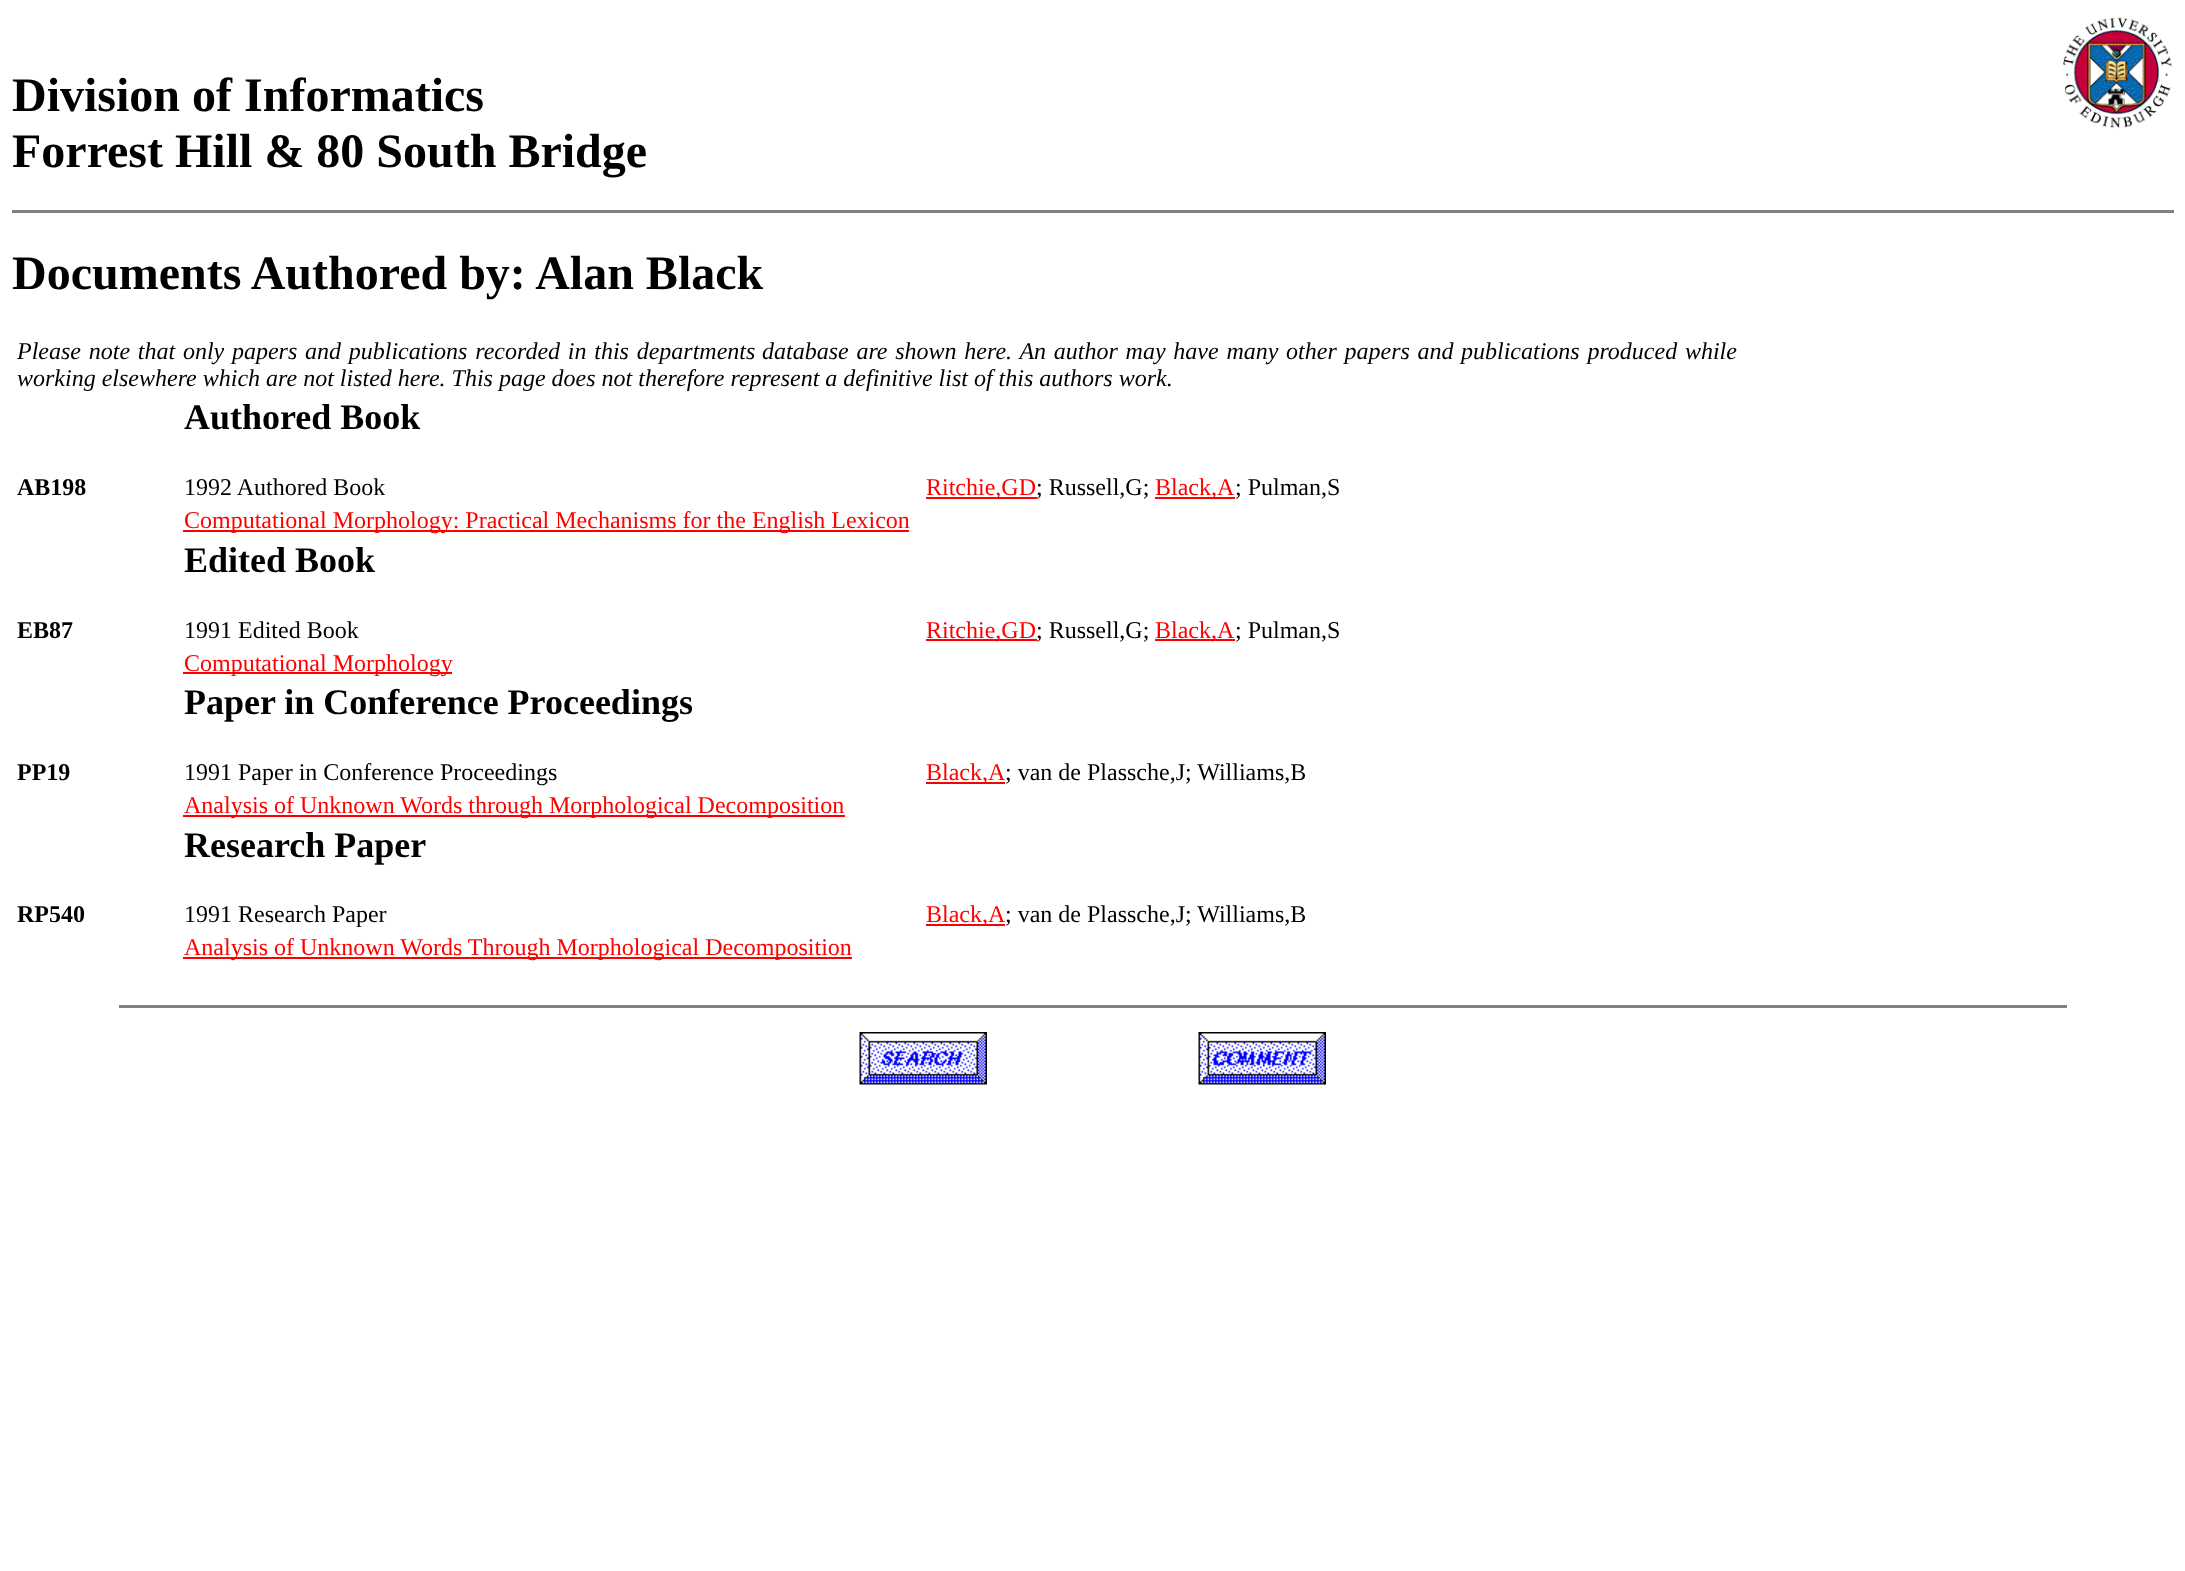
<!DOCTYPE html>
<meta charset="utf-8">
<style>body { margin: 0 } canvas { display: block }</style>
<canvas id="canvas" width="2185" height="1571"></canvas>
<img id="img1" src="images/1.png" hidden>
<img id="img2" src="images/2.png" hidden>
<img id="img3" src="images/3.png" hidden>
<script>
window.onload = function () {
    const canvas = document.getElementById('canvas');
    const context = canvas.getContext('2d');
    context.miterLimit = 4;
    context.fontKerning = 'normal';

    context.fillStyle = 'rgb(255, 255, 255)';
    context.fillRect(0, 0, 2185, 1571);
    context.drawImage(document.getElementById('img1'), 2063, 17, 109, 112);
    context.fillStyle = 'rgb(128, 128, 128)';
    context.fillRect(12, 210, 2162, 3);
    context.fillStyle = 'rgb(255, 0, 0)';
    context.fillRect(926, 497, 111, 2);
    context.fillRect(1155, 497, 80, 2);
    context.fillRect(183, 530, 726, 2);
    context.fillRect(926, 639, 111, 2);
    context.fillRect(1155, 639, 80, 2);
    context.fillRect(183, 672, 269, 2);
    context.fillRect(926, 782, 79, 2);
    context.fillRect(183, 815, 662, 2);
    context.fillRect(926, 924, 79, 2);
    context.fillRect(183, 957, 669, 2);
    context.fillStyle = 'rgb(128, 128, 128)';
    context.fillRect(119, 1005, 1948, 3);
    context.drawImage(document.getElementById('img2'), 859, 1032, 128, 53);
    context.drawImage(document.getElementById('img3'), 1198, 1032, 128, 53);
    context.font = 'bold 48px Liberation Serif';
    context.fillStyle = 'rgb(0, 0, 0)';
    context.fillText('Division of Informatics', 12, 111);
    context.fillText('Forrest Hill & 80 South Bridge', 12, 167);
    context.fillText('Documents Authored by: Alan Black', 12, 289);
    context.wordSpacing = '1.75px';
    context.font = 'italic 24px Liberation Serif';
    context.fillText('Please note that only papers and publications recorded in this departments', 17, 359);
    context.fillText('database are shown here. An author may have many other papers and', 762, 359);
    context.fillText('publications produced while', 1461, 359);
    context.wordSpacing = '0px';
    context.fillText('working elsewhere which are not listed here. This page does not therefore represent a definitive list of this authors work.', 17, 386);
    context.font = 'bold 36px Liberation Serif';
    context.fillText('Authored Book', 184, 429);
    context.font = 'bold 24px Liberation Serif';
    context.fillText('AB198', 17, 495);
    context.font = '24px Liberation Serif';
    context.fillText('1992 Authored Book', 184, 495);
    context.fillStyle = 'rgb(255, 0, 0)';
    context.fillText('Ritchie,GD', 926, 495);
    context.fillStyle = 'rgb(0, 0, 0)';
    context.fillText('; Russell,G;', 1036, 495);
    context.fillStyle = 'rgb(255, 0, 0)';
    context.fillText('Black,A', 1155, 495);
    context.fillStyle = 'rgb(0, 0, 0)';
    context.fillText('; Pulman,S', 1235, 495);
    context.fillStyle = 'rgb(255, 0, 0)';
    context.fillText('Computational Morphology: Practical Mechanisms for the English Lexicon', 184, 528);
    context.font = 'bold 36px Liberation Serif';
    context.fillStyle = 'rgb(0, 0, 0)';
    context.fillText('Edited Book', 184, 572);
    context.font = 'bold 24px Liberation Serif';
    context.fillText('EB87', 17, 638);
    context.font = '24px Liberation Serif';
    context.fillText('1991 Edited Book', 184, 638);
    context.fillStyle = 'rgb(255, 0, 0)';
    context.fillText('Ritchie,GD', 926, 638);
    context.fillStyle = 'rgb(0, 0, 0)';
    context.fillText('; Russell,G;', 1036, 638);
    context.fillStyle = 'rgb(255, 0, 0)';
    context.fillText('Black,A', 1155, 638);
    context.fillStyle = 'rgb(0, 0, 0)';
    context.fillText('; Pulman,S', 1235, 638);
    context.fillStyle = 'rgb(255, 0, 0)';
    context.fillText('Computational Morphology', 184, 671);
    context.font = 'bold 36px Liberation Serif';
    context.fillStyle = 'rgb(0, 0, 0)';
    context.fillText('Paper in Conference Proceedings', 184, 714);
    context.font = 'bold 24px Liberation Serif';
    context.fillText('PP19', 17, 780);
    context.font = '24px Liberation Serif';
    context.fillText('1991 Paper in Conference Proceedings', 184, 780);
    context.fillStyle = 'rgb(255, 0, 0)';
    context.fillText('Black,A', 926, 780);
    context.fillStyle = 'rgb(0, 0, 0)';
    context.fillText('; van de Plassche,J; Williams,B', 1005, 780);
    context.fillStyle = 'rgb(255, 0, 0)';
    context.fillText('Analysis of Unknown Words through Morphological Decomposition', 184, 813);
    context.font = 'bold 36px Liberation Serif';
    context.fillStyle = 'rgb(0, 0, 0)';
    context.fillText('Research Paper', 184, 857);
    context.font = 'bold 24px Liberation Serif';
    context.fillText('RP540', 17, 922);
    context.font = '24px Liberation Serif';
    context.fillText('1991 Research Paper', 184, 922);
    context.fillStyle = 'rgb(255, 0, 0)';
    context.fillText('Black,A', 926, 922);
    context.fillStyle = 'rgb(0, 0, 0)';
    context.fillText('; van de Plassche,J; Williams,B', 1005, 922);
    context.fillStyle = 'rgb(255, 0, 0)';
    context.fillText('Analysis of Unknown Words Through Morphological Decomposition', 184, 955);
};
</script>
